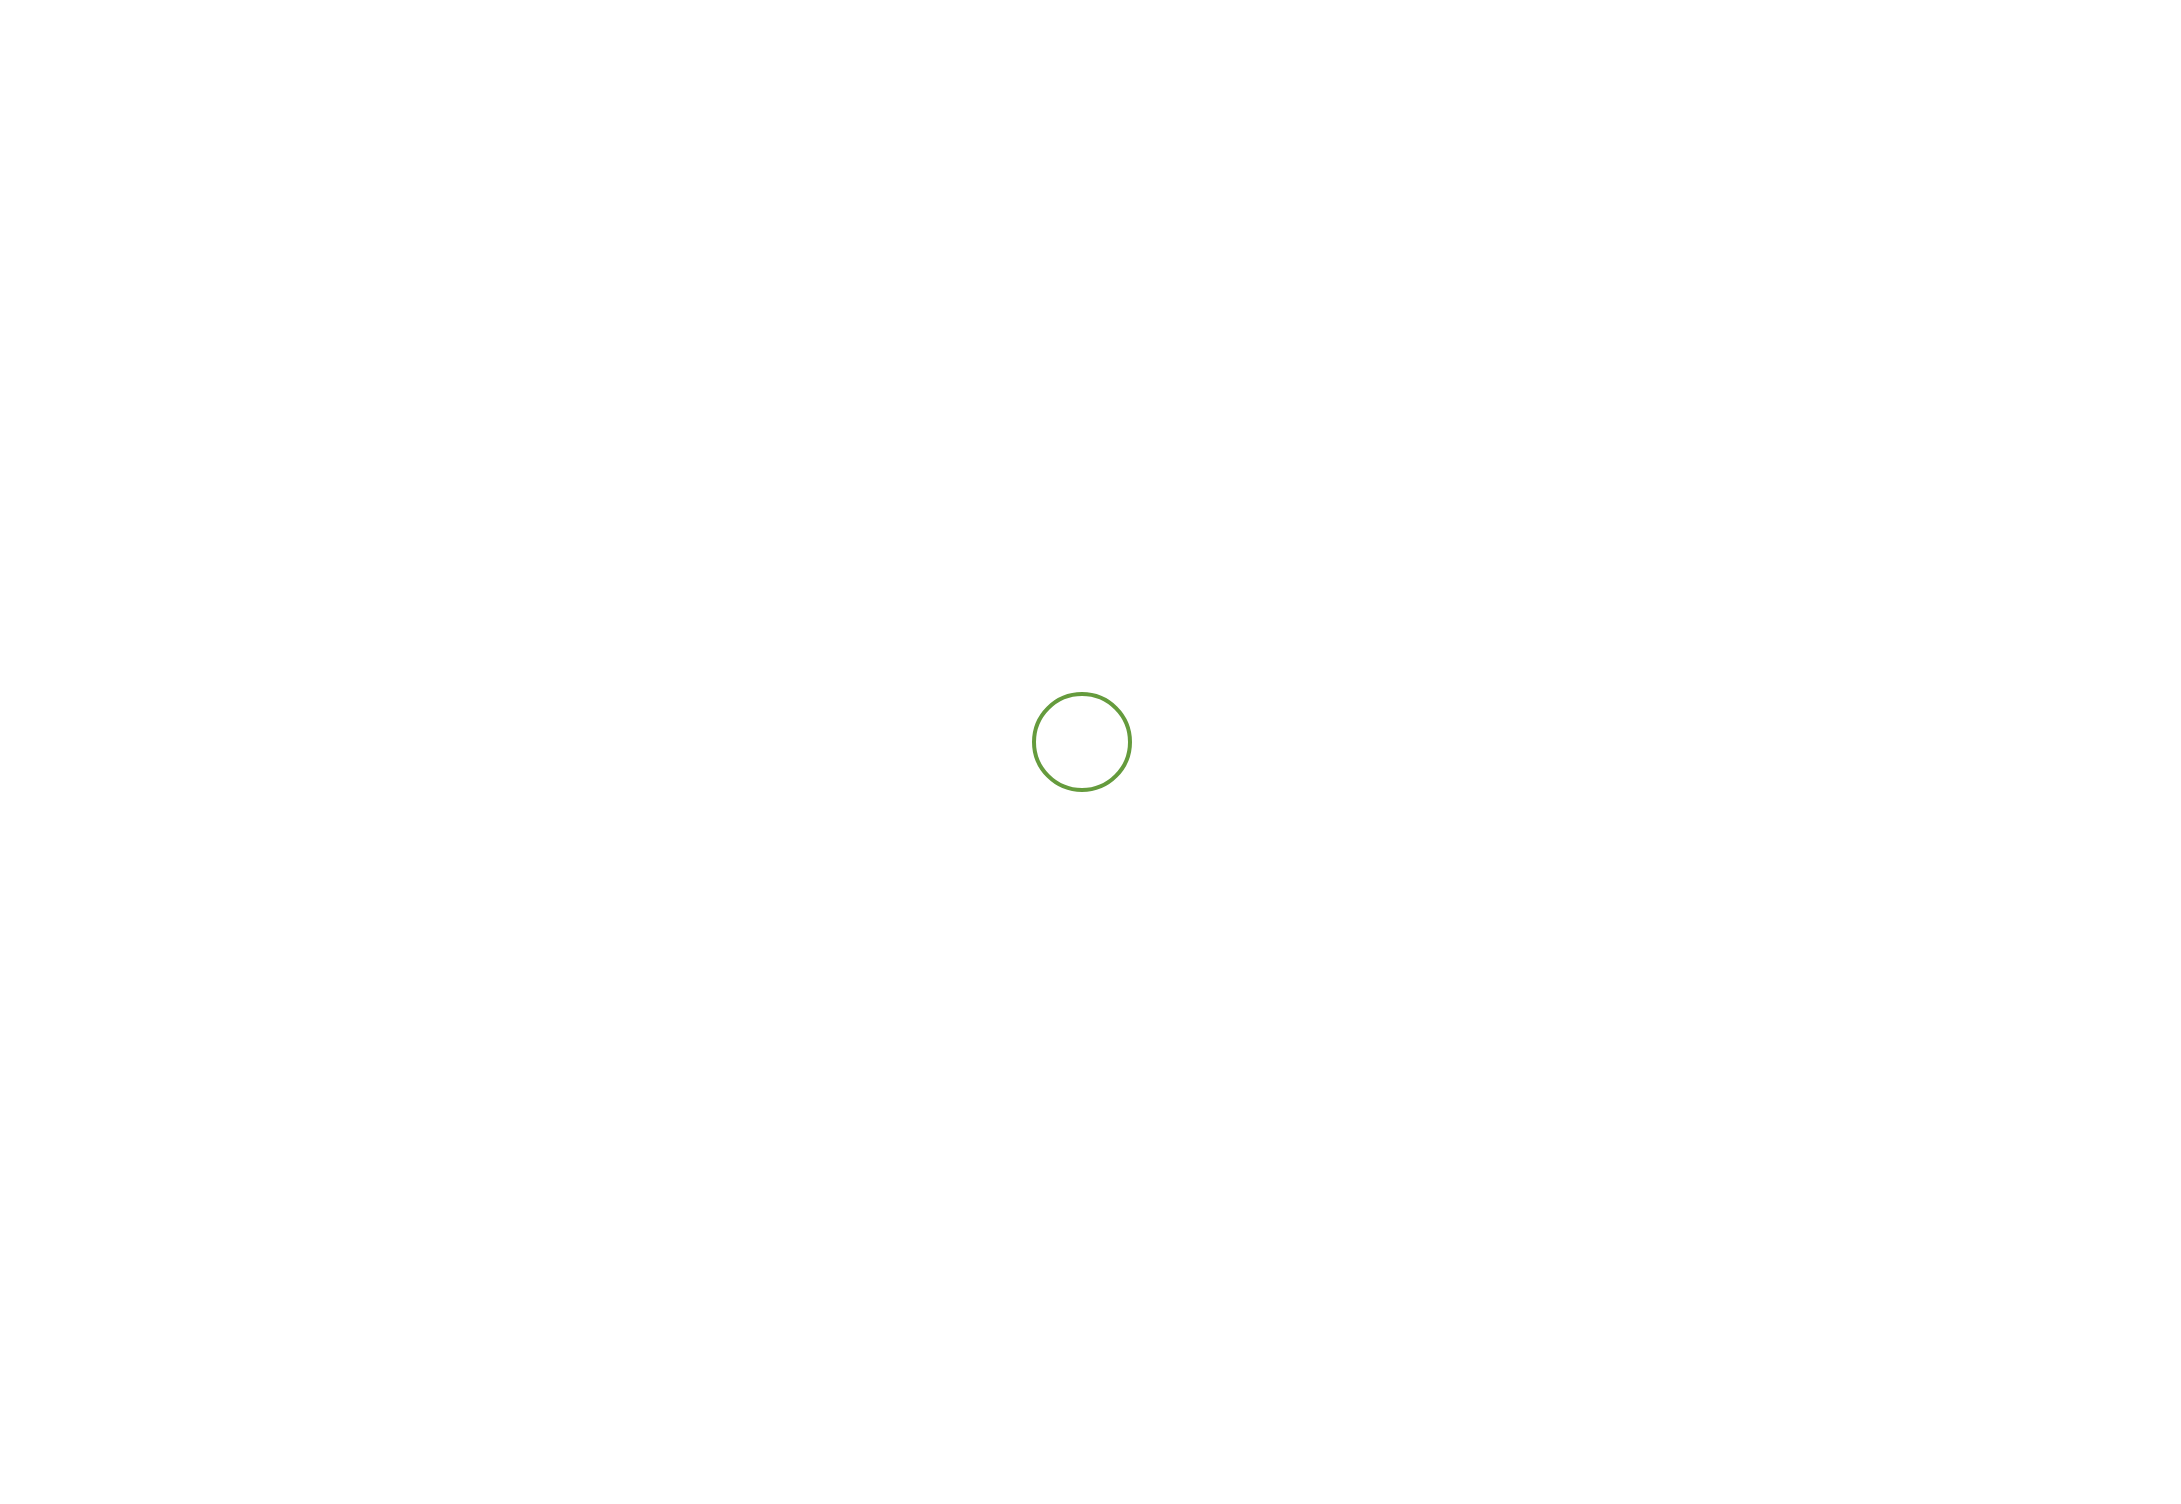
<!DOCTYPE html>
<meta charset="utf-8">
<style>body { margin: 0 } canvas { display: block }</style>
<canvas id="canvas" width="2181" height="1504"></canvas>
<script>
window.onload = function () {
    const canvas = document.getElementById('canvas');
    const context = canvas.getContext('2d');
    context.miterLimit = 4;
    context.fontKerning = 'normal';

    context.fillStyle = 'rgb(255, 255, 255)';
    context.fillRect(0, 0, 2181, 1504);
    context.beginPath();
    context.arc(1082, 742, 48, 0, 2 * Math.PI);
    context.strokeStyle = 'rgb(101, 155, 61)';
    context.lineWidth = 4;
    context.stroke();
};
</script>
